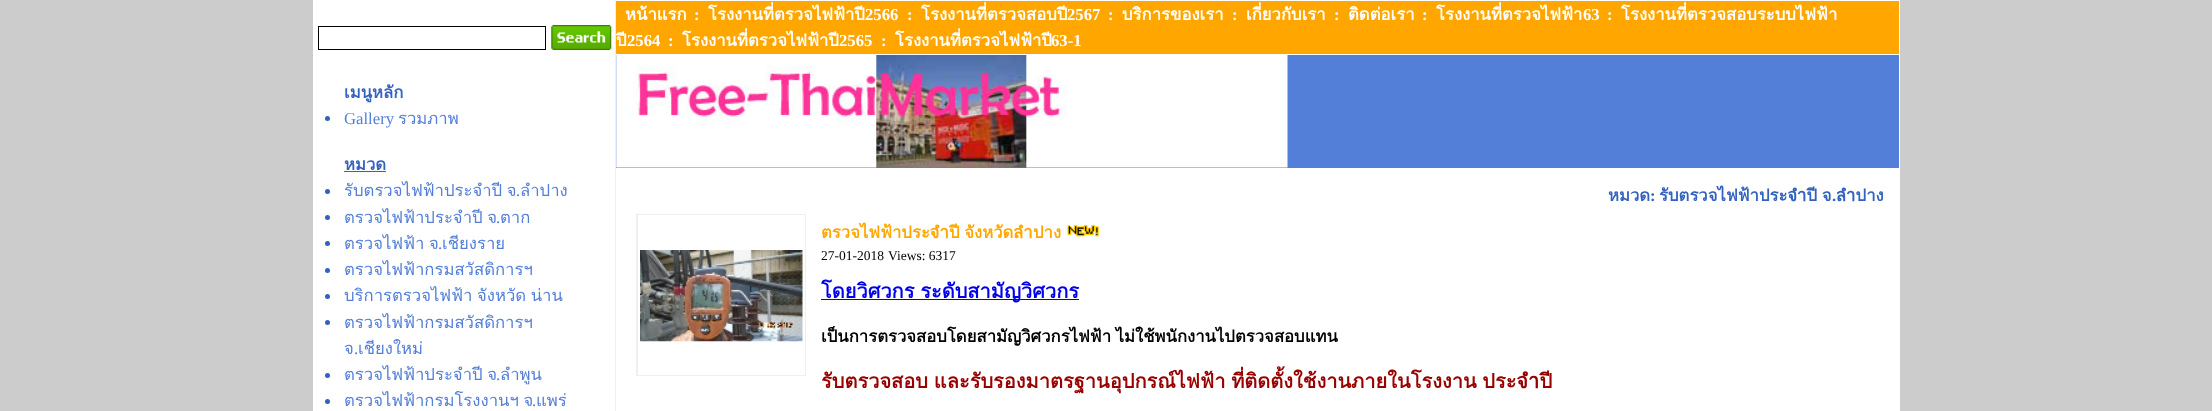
<!DOCTYPE html>
<meta charset="utf-8">
<style>body { margin: 0 } canvas { display: block }</style>
<canvas id="canvas" width="2212" height="411"></canvas>
<img id="img1" src="images/1.png" hidden>
<img id="img2" src="images/2.png" hidden>
<img id="img3" src="images/3.png" hidden>
<img id="img4" src="images/4.png" hidden>
<script>
window.onload = function () {
    const canvas = document.getElementById('canvas');
    const context = canvas.getContext('2d');
    context.miterLimit = 4;
    context.fontKerning = 'normal';

    context.fillStyle = 'rgb(204, 204, 204)';
    context.fillRect(0, 0, 2212, 411);
    context.fillStyle = 'rgb(255, 255, 255)';
    context.fillRect(313, 0, 1587, 411);
    context.fillStyle = 'rgb(239, 239, 239)';
    context.fillRect(615, 1, 1, 410);
    context.strokeStyle = 'rgb(0, 0, 0)';
    context.strokeRect(318.5, 26.5, 227, 23);
    context.drawImage(document.getElementById('img1'), 551, 25, 61, 25);
    context.fillStyle = 'rgb(51, 97, 190)';
    context.beginPath();
    context.arc(327.5, 118.5, 2.5, 0, 2 * Math.PI);
    context.fill();
    context.fillRect(344, 171, 42, 1);
    context.beginPath();
    context.arc(327.5, 191.5, 2.5, 0, 2 * Math.PI);
    context.fill();
    context.beginPath();
    context.arc(327.5, 217.5, 2.5, 0, 2 * Math.PI);
    context.fill();
    context.beginPath();
    context.arc(327.5, 243.5, 2.5, 0, 2 * Math.PI);
    context.fill();
    context.beginPath();
    context.arc(327.5, 270.5, 2.5, 0, 2 * Math.PI);
    context.fill();
    context.beginPath();
    context.arc(327.5, 296.5, 2.5, 0, 2 * Math.PI);
    context.fill();
    context.beginPath();
    context.arc(327.5, 322.5, 2.5, 0, 2 * Math.PI);
    context.fill();
    context.beginPath();
    context.arc(327.5, 375.5, 2.5, 0, 2 * Math.PI);
    context.fill();
    context.beginPath();
    context.arc(327.5, 401.5, 2.5, 0, 2 * Math.PI);
    context.fill();
    context.fillStyle = 'rgb(255, 167, 0)';
    context.fillRect(616, 1, 1283, 53);
    context.fillStyle = 'rgb(83, 127, 216)';
    context.fillRect(616, 55, 1283, 113);
    context.drawImage(document.getElementById('img2'), 616, 55, 672, 113);
    context.fillStyle = 'rgb(239, 239, 239)';
    context.fillRect(636, 214, 170, 162);
    context.fillStyle = 'rgb(255, 255, 255)';
    context.fillRect(638, 215, 167, 160);
    context.drawImage(document.getElementById('img3'), 640, 250, 163, 92);
    context.drawImage(document.getElementById('img4'), 1067, 224, 32, 13);
    context.fillStyle = 'rgb(0, 0, 238)';
    context.fillRect(821, 299, 258, 1);
    context.font = 'bold 16.7px Loma';
    context.fillStyle = 'rgb(51, 97, 190)';
    context.fillText('เมนูหลัก', 344, 98);
    context.font = '16.7px Liberation Serif';
    context.fillStyle = 'rgb(83, 127, 216)';
    context.fillText('Gallery', 344, 124);
    context.font = '16.7px Loma';
    context.fillText('รวมภาพ', 398, 124);
    context.font = 'bold 16.7px Loma';
    context.fillStyle = 'rgb(51, 97, 190)';
    context.fillText('หมวด', 344, 170);
    context.wordSpacing = '-1px';
    context.font = '16.7px Loma';
    context.fillStyle = 'rgb(83, 127, 216)';
    context.fillText('รับตรวจไฟฟ้าประจำปี จ', 344, 196);
    context.wordSpacing = '0px';
    context.font = '16.7px Liberation Serif';
    context.fillText('.', 516, 196);
    context.font = '16.7px Loma';
    context.fillText('ลำปาง', 520, 196);
    context.wordSpacing = '-1px';
    context.fillText('ตรวจไฟฟ้าประจำปี จ', 344, 223);
    context.wordSpacing = '0px';
    context.fillText('ตาก', 500, 223);
    context.font = '16.7px Liberation Serif';
    context.fillText('.', 496, 223);
    context.wordSpacing = '-1px';
    context.font = '16.7px Loma';
    context.fillText('ตรวจไฟฟ้า จ', 344, 249);
    context.wordSpacing = '0px';
    context.font = '16.7px Liberation Serif';
    context.fillText('.', 438, 249);
    context.font = '16.7px Loma';
    context.fillText('เชียงราย', 442, 249);
    context.fillText('ตรวจไฟฟ้ากรมสวัสดิการฯ', 344, 275);
    context.wordSpacing = '-1px';
    context.fillText('บริการตรวจไฟฟ้า จังหวัด น่าน', 344, 301);
    context.wordSpacing = '0px';
    context.fillText('ตรวจไฟฟ้ากรมสวัสดิการฯ', 344, 328);
    context.fillText('จ', 344, 354);
    context.font = '16.7px Liberation Serif';
    context.fillText('.', 354, 354);
    context.font = '16.7px Loma';
    context.fillText('เชียงใหม่', 358, 354);
    context.wordSpacing = '-1px';
    context.fillText('ตรวจไฟฟ้าประจำปี จ', 344, 380);
    context.wordSpacing = '0px';
    context.font = '16.7px Liberation Serif';
    context.fillText('.', 496, 380);
    context.font = '16.7px Loma';
    context.fillText('ลำพูน', 500, 380);
    context.wordSpacing = '-1px';
    context.fillText('ตรวจไฟฟ้ากรมโรงงานฯ จ', 344, 406);
    context.wordSpacing = '0px';
    context.fillText('แพร่', 536, 406);
    context.font = '16.7px Liberation Serif';
    context.fillText('.', 532, 406);
    context.font = 'bold 16.7px Loma';
    context.fillStyle = 'rgb(255, 255, 255)';
    context.fillText('หน้าแรก', 625, 20);
    context.font = 'bold 16.7px Liberation Serif';
    context.fillText(':', 694, 20);
    context.font = 'bold 16.7px Loma';
    context.fillText('โรงงานที่ตรวจไฟฟ้าปี', 708, 20);
    context.font = 'bold 16.7px Liberation Serif';
    context.fillText('2566', 865, 20);
    context.fillText(':', 907, 20);
    context.font = 'bold 16.7px Loma';
    context.fillText('โรงงานที่ตรวจสอบปี', 921, 20);
    context.font = 'bold 16.7px Liberation Serif';
    context.fillText('2567', 1067, 20);
    context.fillText(':', 1108, 20);
    context.font = 'bold 16.7px Loma';
    context.fillText('บริการของเรา', 1122, 20);
    context.font = 'bold 16.7px Liberation Serif';
    context.fillText(':', 1232, 20);
    context.font = 'bold 16.7px Loma';
    context.fillText('เกี่ยวกับเรา', 1246, 20);
    context.font = 'bold 16.7px Liberation Serif';
    context.fillText(':', 1334, 20);
    context.font = 'bold 16.7px Loma';
    context.fillText('ติดต่อเรา', 1348, 20);
    context.font = 'bold 16.7px Liberation Serif';
    context.fillText(':', 1422, 20);
    context.font = 'bold 16.7px Loma';
    context.fillText('โรงงานที่ตรวจไฟฟ้า', 1436, 20);
    context.font = 'bold 16.7px Liberation Serif';
    context.fillText('63', 1583, 20);
    context.fillText(':', 1607, 20);
    context.font = 'bold 16.7px Loma';
    context.fillText('โรงงานที่ตรวจสอบระบบไฟฟ้า', 1621, 20);
    context.fillText('ปี', 616, 46);
    context.font = 'bold 16.7px Liberation Serif';
    context.fillText('2564', 627, 46);
    context.fillText(':', 668, 46);
    context.font = 'bold 16.7px Loma';
    context.fillText('โรงงานที่ตรวจไฟฟ้าปี', 682, 46);
    context.font = 'bold 16.7px Liberation Serif';
    context.fillText('2565', 839, 46);
    context.fillText(':', 881, 46);
    context.font = 'bold 16.7px Loma';
    context.fillText('โรงงานที่ตรวจไฟฟ้าปี', 895, 46);
    context.font = 'bold 16.7px Liberation Serif';
    context.fillText('63-1', 1051, 46);
    context.font = 'bold 16.7px Loma';
    context.fillStyle = 'rgb(51, 97, 190)';
    context.fillText('หมวด', 1608, 201);
    context.font = 'bold 16.7px Liberation Serif';
    context.fillText(':', 1650, 201);
    context.wordSpacing = '-1px';
    context.font = 'bold 16.7px Loma';
    context.fillText('รับตรวจไฟฟ้าประจำปี จ', 1659, 201);
    context.wordSpacing = '0px';
    context.font = 'bold 16.7px Liberation Serif';
    context.fillText('.', 1832, 201);
    context.font = 'bold 16.7px Loma';
    context.fillText('ลำปาง', 1836, 201);
    context.wordSpacing = '-1px';
    context.fillStyle = 'rgb(255, 167, 0)';
    context.fillText('ตรวจไฟฟ้าประจำปี จังหวัดลำปาง', 821, 238);
    context.wordSpacing = '0px';
    context.font = '13.5px Liberation Serif';
    context.fillStyle = 'rgb(0, 0, 0)';
    context.fillText('27-01-2018', 821, 260);
    context.fillText('Views: 6317', 888, 260);
    context.wordSpacing = '-1px';
    context.font = 'bold 20px Loma';
    context.fillStyle = 'rgb(0, 0, 238)';
    context.fillText('โดยวิศวกร ระดับสามัญวิศวกร', 821, 298);
    context.font = 'bold 16.7px Loma';
    context.fillStyle = 'rgb(0, 0, 0)';
    context.fillText('เป็นการตรวจสอบโดยสามัญวิศวกรไฟฟ้า ไม่ใช้พนักงานไปตรวจสอบแทน', 821, 342);
    context.font = 'bold 20px Loma';
    context.fillStyle = 'rgb(153, 0, 0)';
    context.fillText('รับตรวจสอบ และรับรองมาตรฐานอุปกรณ์ไฟฟ้า ที่ติดตั้งใช้งานภายในโรงงาน ประจำปี', 821, 388);
};
</script>
